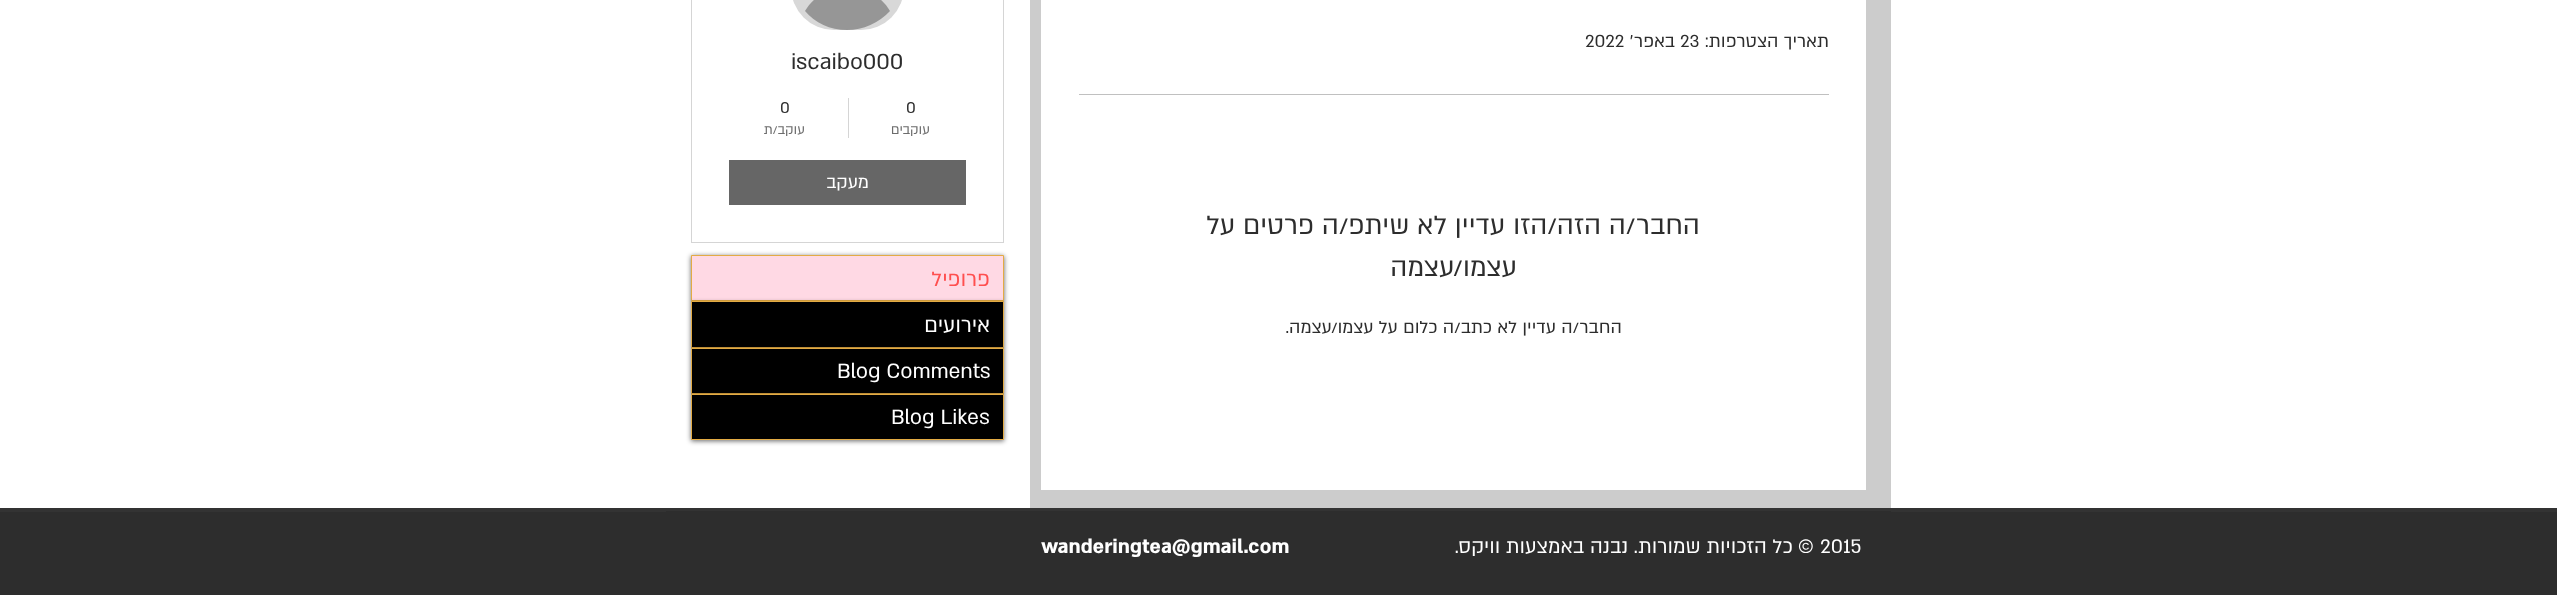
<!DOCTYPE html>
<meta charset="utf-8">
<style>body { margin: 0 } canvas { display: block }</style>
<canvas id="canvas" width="2557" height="595"></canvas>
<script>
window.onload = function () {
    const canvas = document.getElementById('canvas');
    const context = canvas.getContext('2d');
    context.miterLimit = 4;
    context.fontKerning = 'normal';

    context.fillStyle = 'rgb(255, 255, 255)';
    context.fillRect(0, 0, 2557, 595);
    context.fillStyle = 'rgb(204, 204, 204)';
    context.fillRect(1030, 0, 861, 508);
    context.fillStyle = 'rgb(255, 255, 255)';
    context.fillRect(1041, 0, 825, 490);
    context.fillStyle = 'rgb(192, 192, 192)';
    context.fillRect(1079, 94, 750, 1);
    context.strokeStyle = 'rgb(213, 213, 213)';
    context.strokeRect(691.5, -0.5, 312, 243);
    context.fillStyle = 'rgb(216, 216, 216)';
    context.beginPath();
    context.roundRect(791, -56, 113, 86, 56);
    context.fill();
    context.fillStyle = 'rgb(150, 150, 150)';
    context.beginPath();
    context.moveTo(847, 30);
    context.bezierCurveTo(863, 30, 879, 23, 890, 11);
    context.bezierCurveTo(871, -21, 824, -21, 805, 11);
    context.bezierCurveTo(815, 23, 830, 30, 847, 30);
    context.closePath();
    context.fill();
    context.fillStyle = 'rgb(213, 213, 213)';
    context.fillRect(848, 98, 1, 40);
    context.fillStyle = 'rgb(102, 102, 102)';
    context.fillRect(729, 160, 237, 45);
    context.fillStyle = 'rgba(0, 0, 0, 0.6)';
    context.filter = 'blur(2.5px)';
    context.beginPath();
    context.rect(691, 256, 313, 47);
    context.fill();
    context.filter = 'none';
    context.fillStyle = 'rgb(255, 217, 228)';
    context.beginPath();
    context.rect(691.5, 255.5, 312, 45);
    context.fill();
    context.strokeStyle = 'rgb(227, 171, 68)';
    context.stroke();
    context.fillStyle = 'rgba(0, 0, 0, 0.6)';
    context.filter = 'blur(2.5px)';
    context.beginPath();
    context.rect(691, 303, 313, 46);
    context.fill();
    context.filter = 'none';
    context.fillStyle = 'rgb(0, 0, 0)';
    context.beginPath();
    context.rect(691.5, 301.5, 312, 46);
    context.fill();
    context.stroke();
    context.fillStyle = 'rgba(0, 0, 0, 0.6)';
    context.filter = 'blur(2.5px)';
    context.beginPath();
    context.rect(691, 349, 313, 46);
    context.fill();
    context.filter = 'none';
    context.fillStyle = 'rgb(0, 0, 0)';
    context.beginPath();
    context.rect(691.5, 348.5, 312, 45);
    context.fill();
    context.stroke();
    context.fillStyle = 'rgba(0, 0, 0, 0.6)';
    context.filter = 'blur(2.5px)';
    context.beginPath();
    context.rect(691, 395, 313, 46);
    context.fill();
    context.filter = 'none';
    context.fillStyle = 'rgb(0, 0, 0)';
    context.beginPath();
    context.rect(691.5, 394.5, 312, 45);
    context.fill();
    context.stroke();
    context.fillStyle = 'rgb(45, 45, 45)';
    context.fillRect(0, 512, 2557, 83);
    context.fillStyle = 'rgb(51, 51, 51)';
    context.fillRect(0, 508, 2557, 4);
    context.fillStyle = 'rgb(45, 45, 45)';
    context.fillRect(666, 511, 1225, 1);
    context.direction = 'rtl';
    context.font = '20px "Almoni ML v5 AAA"';
    context.fillText('תאריך הצטרפות:', 1829, 47);
    context.direction = 'ltr';
    context.fillText('23', 1680, 47);
    context.direction = 'rtl';
    context.fillText('באפר׳', 1675, 47);
    context.direction = 'ltr';
    context.fillText('2022', 1585, 47);
    context.direction = 'rtl';
    context.font = '30px "Almoni ML v5 AAA"';
    context.fillText('החבר/ה הזה/הזו עדיין לא שיתפ/ה פרטים על', 1700, 234);
    context.fillText('עצמו/עצמה', 1517, 276);
    context.font = '20px "Almoni ML v5 AAA"';
    context.fillText('החבר/ה עדיין לא כתב/ה כלום על עצמו/עצמה.', 1622, 333);
    context.direction = 'ltr';
    context.font = '25px "Almoni ML v5 AAA"';
    context.fillText('iscaibo000', 791, 69);
    context.font = '18px "Almoni ML v5 AAA"';
    context.fillText('0', 906, 113);
    context.direction = 'rtl';
    context.font = '15px "Almoni ML v5 AAA"';
    context.fillStyle = 'rgb(108, 108, 108)';
    context.fillText('עוקבים', 930, 134);
    context.direction = 'ltr';
    context.font = '18px "Almoni ML v5 AAA"';
    context.fillStyle = 'rgb(45, 45, 45)';
    context.fillText('0', 780, 113);
    context.direction = 'rtl';
    context.font = '15px "Almoni ML v5 AAA"';
    context.fillStyle = 'rgb(108, 108, 108)';
    context.fillText('עוקב/ת', 805, 134);
    context.font = '20px "Almoni ML v5 AAA"';
    context.fillStyle = 'rgb(255, 255, 255)';
    context.fillText('מעקב', 869, 188);
    context.font = '23.75px "Almoni ML v5 AAA"';
    context.fillStyle = 'rgb(255, 79, 79)';
    context.fillText('פרופיל', 990, 286);
    context.fillStyle = 'rgb(255, 255, 255)';
    context.fillText('אירועים', 990, 332);
    context.direction = 'ltr';
    context.fillText('Blog Comments', 837, 378);
    context.fillText('Blog Likes', 891, 424);
    context.font = '22.5px "Almoni ML v5 AAA"';
    context.fillText('2015', 1820, 553);
    context.fillText('©', 1798, 553);
    context.direction = 'rtl';
    context.fillText('כל הזכויות שמורות. נבנה באמצעות וויקס.', 1793, 553);
    context.direction = 'ltr';
    context.font = 'bold 22.5px "Almoni ML v5 AAA"';
    context.fillText('wanderingtea@gmail.com', 1041, 553);
};
</script>
